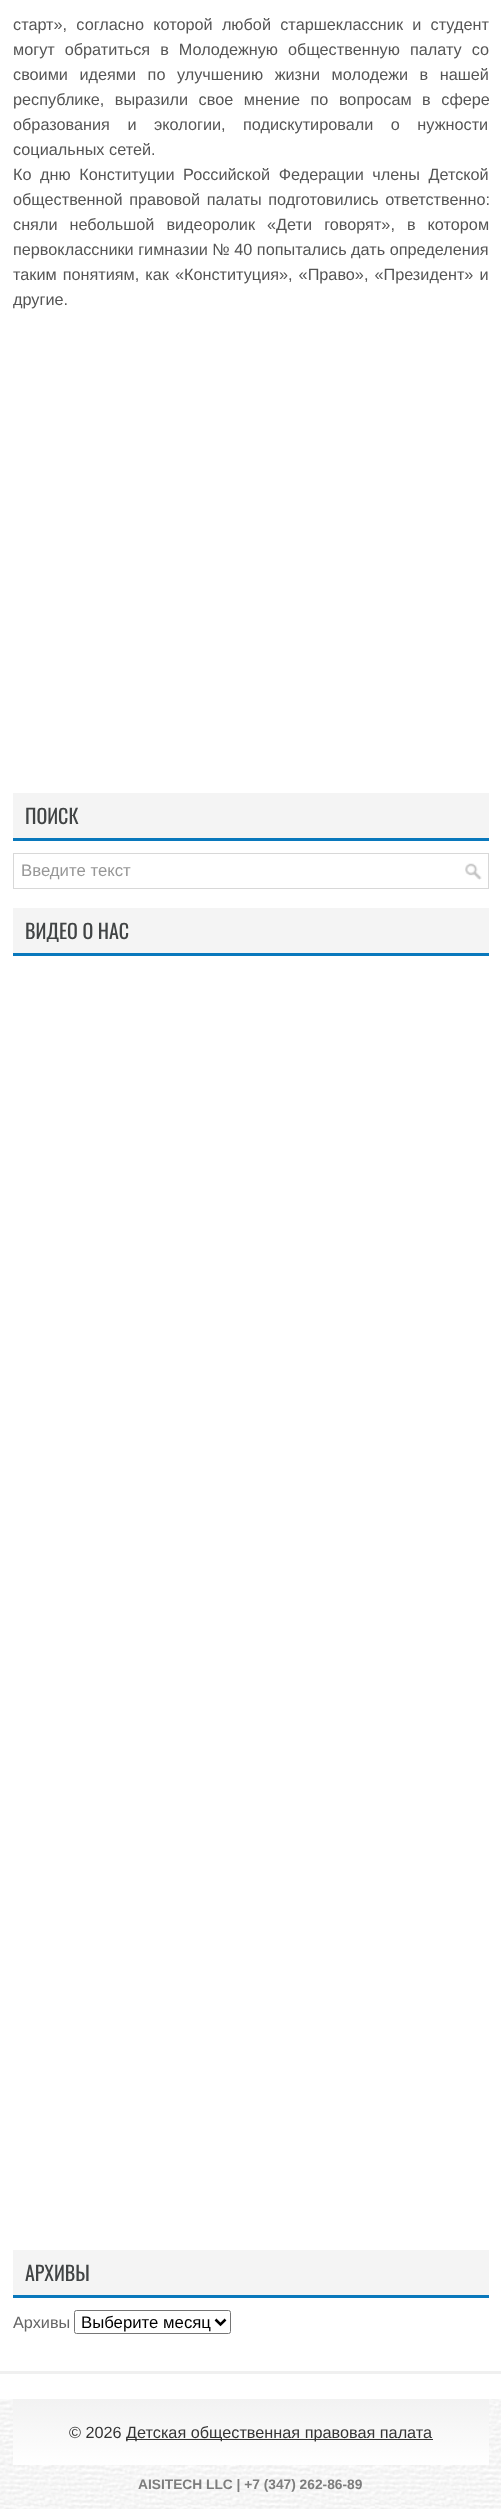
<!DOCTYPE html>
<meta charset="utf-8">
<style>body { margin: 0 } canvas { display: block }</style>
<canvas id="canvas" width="501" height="2509"></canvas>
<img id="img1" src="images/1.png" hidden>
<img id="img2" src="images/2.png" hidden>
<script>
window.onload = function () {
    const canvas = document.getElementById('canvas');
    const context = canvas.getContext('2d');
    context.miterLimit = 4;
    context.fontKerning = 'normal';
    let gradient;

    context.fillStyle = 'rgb(255, 255, 255)';
    context.fillRect(0, 0, 501, 2509);
    context.drawImage(document.getElementById('img1'), 0, 2399, 501, 110);
    context.fillStyle = 'rgb(244, 244, 244)';
    context.fillRect(13, 793, 476, 45);
    context.fillStyle = 'rgb(9, 120, 188)';
    context.fillRect(13, 838, 476, 3);
    context.drawImage(document.getElementById('img2'), 465, 863, 17, 17);
    context.strokeStyle = 'rgb(216, 216, 216)';
    context.strokeRect(13.5, 853.5, 475, 35);
    context.fillStyle = 'rgb(244, 244, 244)';
    context.fillRect(13, 908, 476, 45);
    context.fillStyle = 'rgb(9, 120, 188)';
    context.fillRect(13, 953, 476, 3);
    context.fillStyle = 'rgb(244, 244, 244)';
    context.fillRect(13, 2250, 476, 45);
    context.fillStyle = 'rgb(9, 120, 188)';
    context.fillRect(13, 2295, 476, 3);
    context.beginPath();
    context.roundRect(74.5, 2310.5, 156, 23, 2);
    context.strokeStyle = 'rgb(118, 118, 118)';
    context.stroke();
    context.beginPath();
    context.moveTo(215.5, 2319.5);
    context.lineTo(220.5, 2324.5);
    context.lineTo(225.5, 2319.5);
    context.strokeStyle = 'rgb(0, 0, 0)';
    context.lineWidth = 2.5;
    context.stroke();
    context.fillStyle = 'rgb(240, 240, 240)';
    context.fillRect(0, 2371, 501, 3);
    gradient = context.createLinearGradient(251, 2399, 251, 2465);
    gradient.addColorStop(0, 'rgb(242, 242, 242)');
    gradient.addColorStop(1, 'rgb(255, 255, 255)');
    context.fillStyle = gradient;
    context.fillRect(13, 2399, 476, 66);
    context.fillStyle = 'rgb(53, 53, 53)';
    context.fillRect(126, 2439, 307, 1);
    context.wordSpacing = '4.75px';
    context.font = '16.25px Liberation Sans';
    context.fillStyle = 'rgb(85, 85, 85)';
    context.fillText('старт», согласно которой любой старшеклассник и студент', 13, 30);
    context.wordSpacing = '5.5px';
    context.fillText('могут обратиться в Молодежную общественную палату со', 13, 55);
    context.wordSpacing = '7px';
    context.fillText('своими идеями по улучшению жизни молодежи в нашей', 13, 80);
    context.wordSpacing = '6px';
    context.fillText('республике, выразили свое мнение по вопросам в сфере', 13, 105);
    context.wordSpacing = '13px';
    context.fillText('образования и экологии, подискутировали о нужности', 13, 130);
    context.wordSpacing = '0px';
    context.fillText('социальных сетей.', 13, 155);
    context.wordSpacing = '4px';
    context.fillText('Ко дню Конституции Российской Федерации члены Детской', 13, 180);
    context.wordSpacing = '2px';
    context.fillText('общественной правовой палаты подготовились ответственно:', 13, 205);
    context.wordSpacing = '7.5px';
    context.fillText('сняли небольшой видеоролик «Дети говорят», в котором', 13, 230);
    context.wordSpacing = '0px';
    context.fillText('первоклассники гимназии № 40 попытались дать определения', 13, 255);
    context.wordSpacing = '1.5px';
    context.fillText('таким понятиям, как «Конституция», «Право», «Президент» и', 13, 280);
    context.save();
    context.beginPath();
    context.rect(13, 0, 476, 793);
    context.clip();
    context.wordSpacing = '0px';
    context.fillText('другие.', 13, 305);
    context.restore();
    context.wordSpacing = '0px';
    context.font = '20px Oswald';
    context.fillStyle = 'rgb(65, 68, 69)';
    context.fillText('ПОИСК', 25, 824);
    context.font = '16.75px Liberation Sans';
    context.fillStyle = 'rgb(151, 151, 151)';
    context.fillText('Введите текст', 21, 876);
    context.font = '20px Oswald';
    context.fillStyle = 'rgb(65, 68, 69)';
    context.fillText('ВИДЕО О НАС', 25, 939);
    context.fillText('АРХИВЫ', 25, 2281);
    context.font = '16.25px Liberation Sans';
    context.fillStyle = 'rgb(102, 102, 102)';
    context.fillText('Архивы', 13, 2328);
    context.font = '16.75px Liberation Sans';
    context.fillStyle = 'rgb(0, 0, 0)';
    context.fillText('Выберите месяц', 81, 2328);
    context.font = '16.25px Liberation Sans';
    context.fillStyle = 'rgb(53, 53, 53)';
    context.fillText('© 2026', 69, 2438);
    context.fillText('Детская общественная правовая палата', 126, 2438);
    context.font = 'bold 13.75px Liberation Sans';
    context.fillStyle = 'rgb(125, 125, 125)';
    context.fillText('AISITECH LLC | +7 (347) 262-86-89', 138, 2489);
};
</script>
